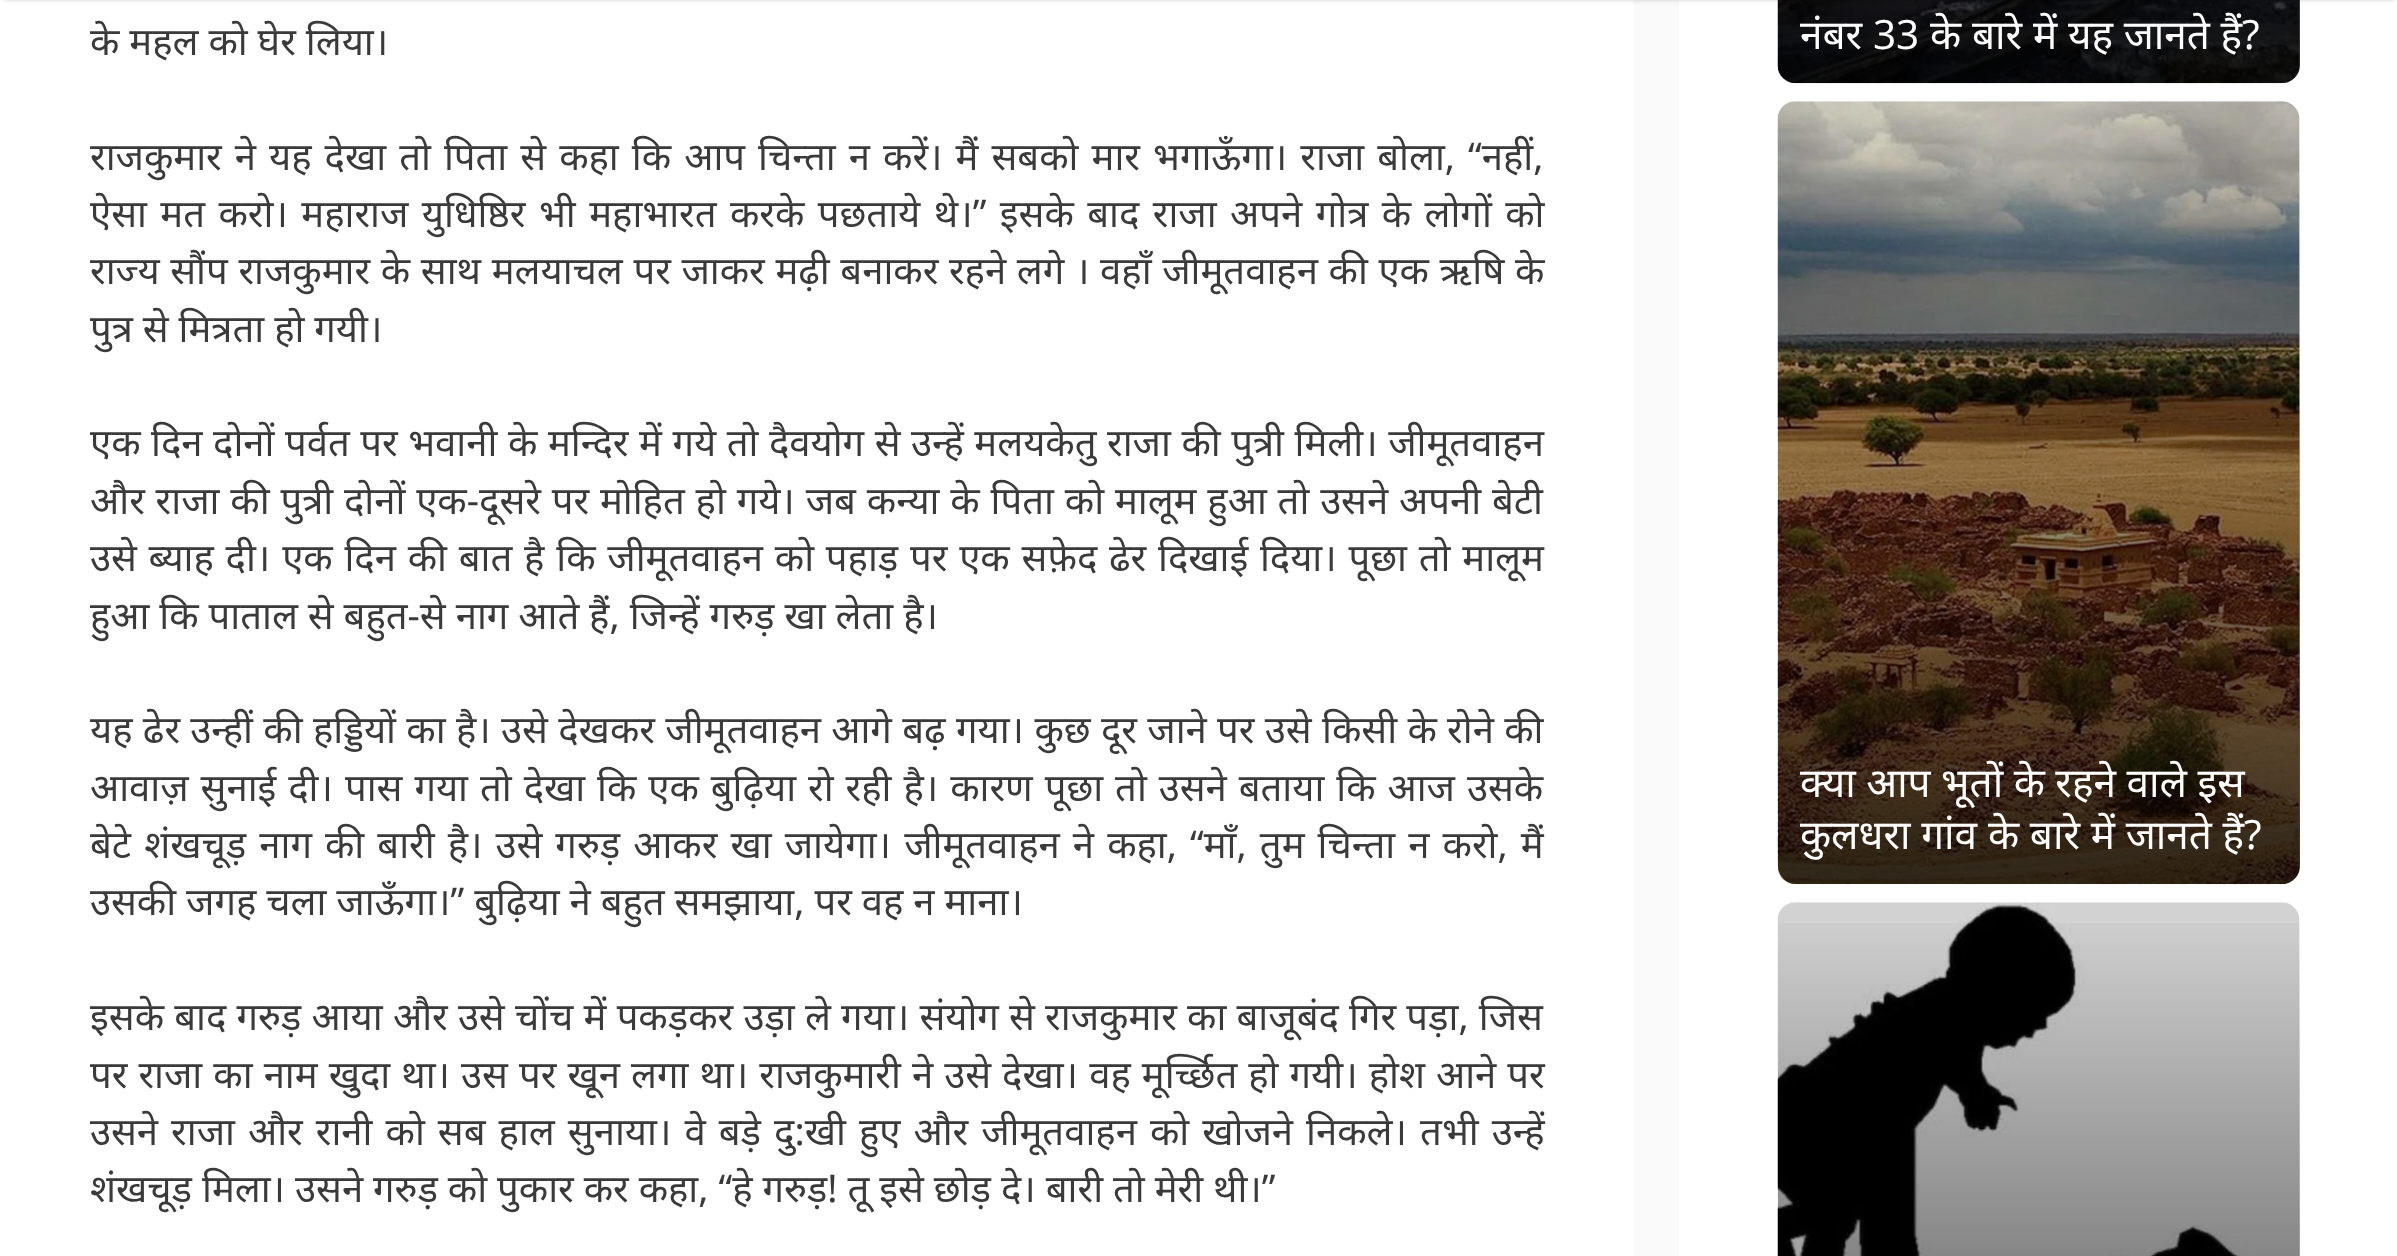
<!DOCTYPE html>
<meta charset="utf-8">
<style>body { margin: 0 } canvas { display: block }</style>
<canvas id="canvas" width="2397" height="1256"></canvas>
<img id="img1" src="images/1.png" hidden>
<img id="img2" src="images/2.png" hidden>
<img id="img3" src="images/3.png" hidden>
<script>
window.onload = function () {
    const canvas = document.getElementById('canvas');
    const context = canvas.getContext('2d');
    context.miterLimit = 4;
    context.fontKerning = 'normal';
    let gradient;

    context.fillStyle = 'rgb(250, 250, 250)';
    context.fillRect(0, 0, 2397, 1256);
    context.fillStyle = 'rgb(255, 255, 255)';
    context.fillRect(0, 0, 1634, 1256);
    context.fillRect(1679, 0, 718, 1256);
    context.drawImage(document.getElementById('img1'), 1777, 0, 523, 84);
    gradient = context.createLinearGradient(2039, -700, 2039, 83);
    gradient.addColorStop(0, 'rgba(0, 0, 0, 0)');
    gradient.addColorStop(1, 'rgba(0, 0, 0, 0.8)');
    context.fillStyle = gradient;
    context.beginPath();
    context.roundRect(1778, -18, 522, 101, 18);
    context.fill();
    context.fillStyle = 'rgba(0, 0, 0, 0.2)';
    context.filter = 'blur(2px)';
    context.beginPath();
    context.rect(5, -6, 2389, 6);
    context.fill();
    context.filter = 'none';
    context.drawImage(document.getElementById('img2'), 1777, 101, 523, 784);
    gradient = context.createLinearGradient(2039, 101, 2039, 884);
    gradient.addColorStop(0, 'rgba(0, 0, 0, 0)');
    gradient.addColorStop(1, 'rgba(0, 0, 0, 0.8)');
    context.fillStyle = gradient;
    context.beginPath();
    context.roundRect(1778, 101, 522, 783, 18);
    context.fill();
    context.drawImage(document.getElementById('img3'), 1777, 902, 523, 354);
    gradient = context.createLinearGradient(2039, 902, 2039, 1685);
    gradient.addColorStop(0, 'rgba(0, 0, 0, 0)');
    gradient.addColorStop(1, 'rgba(0, 0, 0, 0.8)');
    context.fillStyle = gradient;
    context.fillRect(1778, 923, 522, 333);
    context.font = '38.25px Noto Sans';
    context.fillStyle = 'rgb(58, 58, 58)';
    context.fillText('के महल को घेर लिया।', 90, 55);
    context.wordSpacing = '3.1px';
    context.fillText('राजकुमार ने यह देखा तो पिता से कहा कि आप चिन्ता न करें। मैं सबको मार भगाऊँगा। राजा बोला, “नहीं,', 90, 170);
    context.wordSpacing = '3.5px';
    context.fillText('ऐसा मत करो। महाराज युधिष्ठिर भी महाभारत करके पछताये थे।” इसके बाद राजा अपने गोत्र के लोगों को', 90, 227);
    context.wordSpacing = '0.7px';
    context.fillText('राज्य सौंप राजकुमार के साथ मलयाचल पर जाकर मढ़ी बनाकर रहने लगे । वहाँ जीमूतवाहन की एक ऋषि के', 90, 284);
    context.wordSpacing = '0px';
    context.fillText('पुत्र से मित्रता हो गयी।', 90, 342);
    context.wordSpacing = '0.6px';
    context.fillText('एक दिन दोनों पर्वत पर भवानी के मन्दिर में गये तो दैवयोग से उन्हें मलयकेतु राजा की पुत्री मिली। जीमूतवाहन', 90, 456);
    context.wordSpacing = '0.9px';
    context.fillText('और राजा की पुत्री दोनों एक-दूसरे पर मोहित हो गये। जब कन्या के पिता को मालूम हुआ तो उसने अपनी बेटी', 90, 514);
    context.wordSpacing = '1.85px';
    context.fillText('उसे ब्याह दी। एक दिन की बात है कि जीमूतवाहन को पहाड़ पर एक सफ़ेद ढेर दिखाई दिया। पूछा तो मालूम', 90, 571);
    context.wordSpacing = '0px';
    context.fillText('हुआ कि पाताल से बहुत-से नाग आते हैं, जिन्हें गरुड़ खा लेता है।', 90, 629);
    context.wordSpacing = '0.4px';
    context.fillText('यह ढेर उन्हीं की हड्डियों का है। उसे देखकर जीमूतवाहन आगे बढ़ गया। कुछ दूर जाने पर उसे किसी के रोने की', 90, 743);
    context.wordSpacing = '2px';
    context.fillText('आवाज़ सुनाई दी। पास गया तो देखा कि एक बुढ़िया रो रही है। कारण पूछा तो उसने बताया कि आज उसके', 90, 801);
    context.wordSpacing = '3.1px';
    context.fillText('बेटे शंखचूड़ नाग की बारी है। उसे गरुड़ आकर खा जायेगा। जीमूतवाहन ने कहा, “माँ, तुम चिन्ता न करो, मैं', 90, 858);
    context.wordSpacing = '0px';
    context.fillText('उसकी जगह चला जाऊँगा।” बुढ़िया ने बहुत समझाया, पर वह न माना।', 90, 915);
    context.wordSpacing = '0.25px';
    context.fillText('इसके बाद गरुड़ आया और उसे चोंच में पकड़कर उड़ा ले गया। संयोग से राजकुमार का बाजूबंद गिर पड़ा, जिस', 90, 1030);
    context.wordSpacing = '1.1px';
    context.fillText('पर राजा का नाम खुदा था। उस पर खून लगा था। राजकुमारी ने उसे देखा। वह मूर्च्छित हो गयी। होश आने पर', 90, 1088);
    context.wordSpacing = '3.1px';
    context.fillText('उसने राजा और रानी को सब हाल सुनाया। वे बड़े दु:खी हुए और जीमूतवाहन को खोजने निकले। तभी उन्हें', 90, 1145);
    context.wordSpacing = '0px';
    context.fillText('शंखचूड़ मिला। उसने गरुड़ को पुकार कर कहा, “हे गरुड़! तू इसे छोड़ दे। बारी तो मेरी थी।”', 90, 1202);
    context.save();
    context.beginPath();
    context.rect(1800, 0, 477, 61);
    context.clip();
    context.wordSpacing = '0.25px';
    context.font = '40.5px Noto Sans';
    context.fillStyle = 'rgb(255, 255, 255)';
    context.fillText('नंबर 33 के बारे में यह जानते हैं?', 1800, 49);
    context.restore();
    context.font = '40.5px Noto Sans';
    context.fillStyle = 'rgb(255, 255, 255)';
    context.fillText('क्या आप भूतों के रहने वाले इस', 1800, 797);
    context.save();
    context.beginPath();
    context.rect(1800, 756, 477, 106);
    context.clip();
    context.wordSpacing = '0.25px';
    context.fillText('कुलधरा गांव के बारे में जानते हैं?', 1800, 849);
    context.restore();
};
</script>
